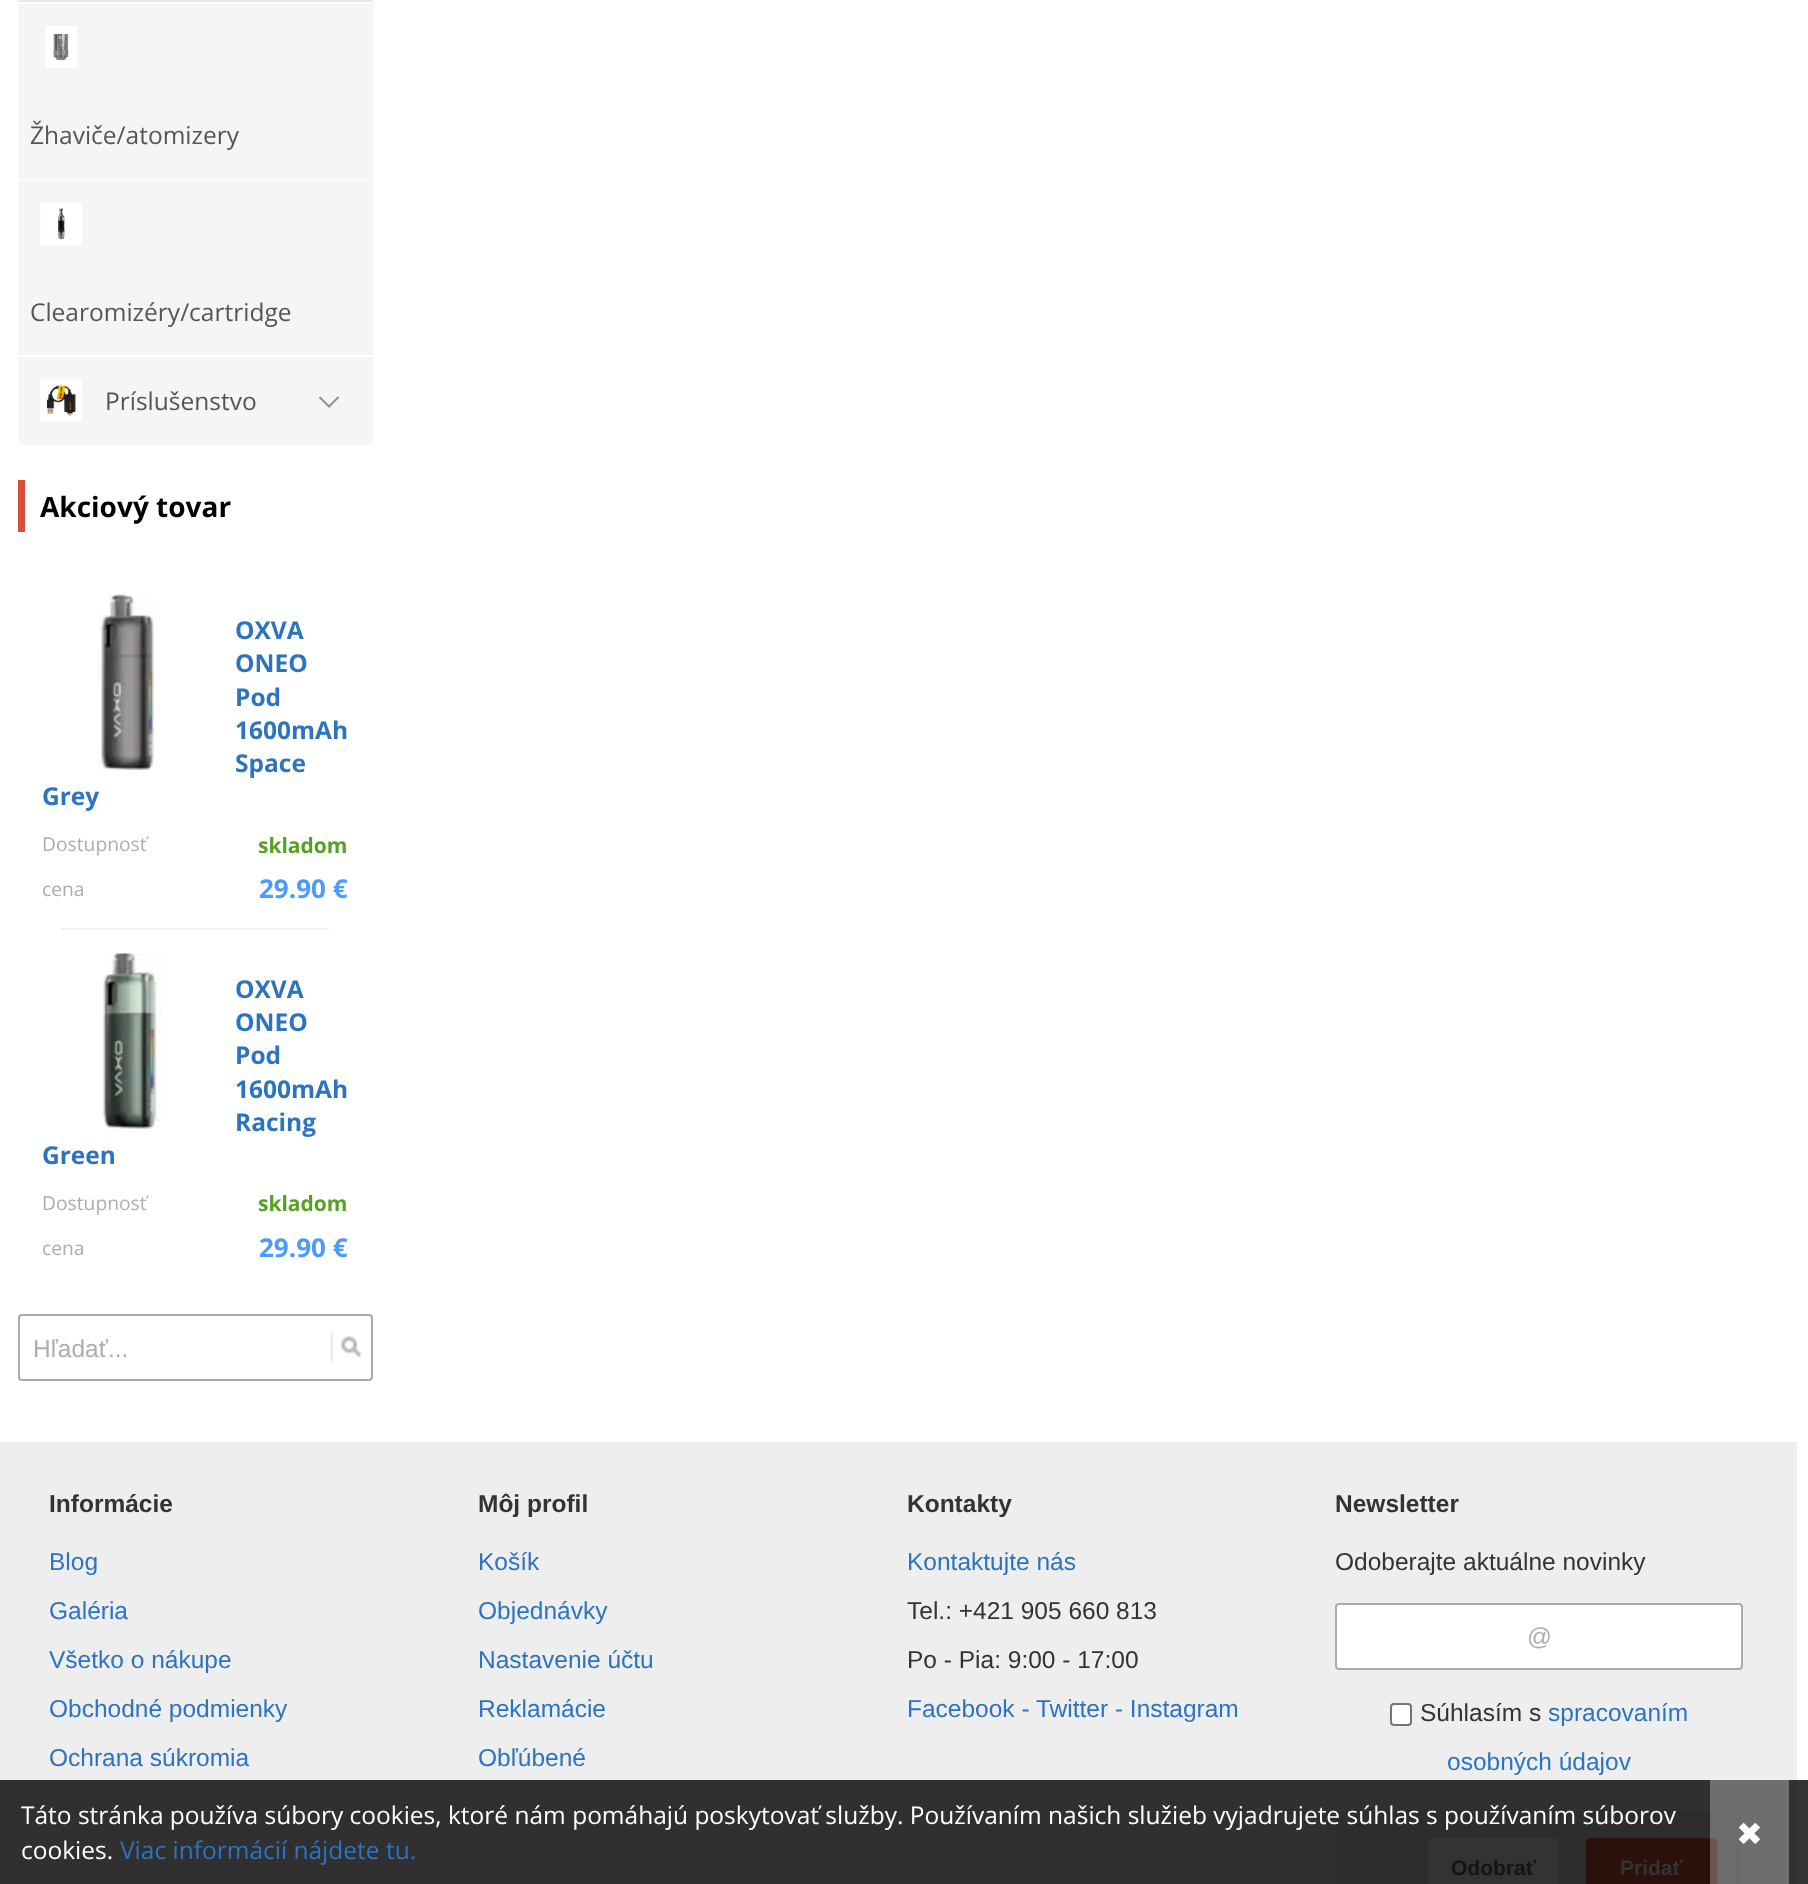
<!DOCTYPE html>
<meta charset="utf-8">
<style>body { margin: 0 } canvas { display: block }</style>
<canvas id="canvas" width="1808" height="1884"></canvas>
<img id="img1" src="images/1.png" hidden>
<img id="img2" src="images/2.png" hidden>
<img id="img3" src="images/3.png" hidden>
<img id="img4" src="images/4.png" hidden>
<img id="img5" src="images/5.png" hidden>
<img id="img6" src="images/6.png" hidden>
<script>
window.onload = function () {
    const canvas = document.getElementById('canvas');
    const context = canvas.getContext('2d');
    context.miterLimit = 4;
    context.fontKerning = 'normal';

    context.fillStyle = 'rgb(255, 255, 255)';
    context.fillRect(0, 0, 1808, 1884);
    context.fillStyle = 'rgb(51, 51, 51)';
    context.fillRect(1797, 1780, 11, 104);
    context.fillStyle = 'rgb(232, 232, 232)';
    context.fillRect(18, 0, 355, 2);
    context.fillStyle = 'rgb(245, 245, 245)';
    context.fillRect(18, 4, 355, 175);
    context.drawImage(document.getElementById('img1'), 45, 26, 32, 42);
    context.fillRect(18, 180, 355, 175);
    context.drawImage(document.getElementById('img2'), 40, 203, 42, 42);
    context.beginPath();
    context.roundRect(18, 357, 355, 88, [0, 0, 7, 7]);
    context.fill();
    context.drawImage(document.getElementById('img3'), 40, 379, 42, 43);
    context.beginPath();
    context.moveTo(338.5, 397);
    context.lineTo(329, 406.5);
    context.lineTo(319.5, 397);
    context.strokeStyle = 'rgb(147, 147, 147)';
    context.lineWidth = 2.1;
    context.stroke();
    context.fillStyle = 'rgb(217, 78, 59)';
    context.fillRect(18, 480, 7, 52);
    context.drawImage(document.getElementById('img4'), 98, 594, 57, 176);
    context.fillStyle = 'rgb(240, 240, 240)';
    context.fillRect(61, 928, 268, 2);
    context.drawImage(document.getElementById('img5'), 103, 953, 63, 176);
    context.drawImage(document.getElementById('img6'), 330, 1333, 32, 29);
    context.beginPath();
    context.roundRect(19, 1315, 353, 65, 3);
    context.strokeStyle = 'rgb(170, 170, 170)';
    context.lineWidth = 2;
    context.stroke();
    context.fillStyle = 'rgb(238, 238, 238)';
    context.fillRect(0, 1442, 1797, 338);
    context.fillStyle = 'rgb(48, 48, 48)';
    context.fillRect(0, 1780, 1797, 104);
    context.fillStyle = 'rgb(255, 255, 255)';
    context.beginPath();
    context.roundRect(1336, 1604, 406, 65, 3);
    context.fill();
    context.stroke();
    context.beginPath();
    context.roundRect(1391, 1704, 20, 21, 3);
    context.fill();
    context.strokeStyle = 'rgb(118, 118, 118)';
    context.stroke();
    context.fillStyle = 'rgb(45, 45, 45)';
    context.fillRect(1335, 1811, 408, 73);
    context.fillStyle = 'rgb(51, 51, 51)';
    context.beginPath();
    context.roundRect(1428, 1838, 131, 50, 4);
    context.fill();
    context.fillStyle = 'rgb(43, 16, 12)';
    context.beginPath();
    context.roundRect(1586, 1838, 131, 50, 4);
    context.fill();
    context.fillStyle = 'rgba(255, 255, 255, 0.3)';
    context.fillRect(1710, 1780, 79, 104);
    context.font = '24.5px Open Sans';
    context.fillStyle = 'rgb(85, 85, 85)';
    context.fillText('Žhaviče/atomizery', 30, 144);
    context.fillText('Clearomizéry/cartridge', 30, 321);
    context.fillText('Príslušenstvo', 105, 410);
    context.font = 'bold 28px Open Sans';
    context.fillStyle = 'rgb(0, 0, 0)';
    context.fillText('Akciový tovar', 40, 517);
    context.font = 'bold 24.5px Open Sans';
    context.fillStyle = 'rgb(44, 116, 191)';
    context.fillText('OXVA', 235, 639);
    context.fillText('ONEO', 235, 672);
    context.fillText('Pod', 235, 706);
    context.fillText('1600mAh', 235, 739);
    context.fillText('Space', 235, 772);
    context.fillText('Grey', 42, 805);
    context.font = '19.25px Open Sans';
    context.fillStyle = 'rgb(173, 173, 173)';
    context.fillText('Dostupnosť', 42, 851);
    context.font = 'bold 21px Open Sans';
    context.fillStyle = 'rgb(85, 161, 35)';
    context.fillText('skladom', 258, 853);
    context.font = '19.25px Open Sans';
    context.fillStyle = 'rgb(173, 173, 173)';
    context.fillText('cena', 42, 896);
    context.font = 'bold 26px Open Sans';
    context.fillStyle = 'rgb(77, 154, 255)';
    context.fillText('29.90 €', 259, 898);
    context.font = 'bold 24.5px Open Sans';
    context.fillStyle = 'rgb(44, 116, 191)';
    context.fillText('OXVA', 235, 998);
    context.fillText('ONEO', 235, 1031);
    context.fillText('Pod', 235, 1064);
    context.fillText('1600mAh', 235, 1098);
    context.fillText('Racing', 235, 1131);
    context.fillText('Green', 42, 1164);
    context.font = '19.25px Open Sans';
    context.fillStyle = 'rgb(173, 173, 173)';
    context.fillText('Dostupnosť', 42, 1210);
    context.font = 'bold 21px Open Sans';
    context.fillStyle = 'rgb(85, 161, 35)';
    context.fillText('skladom', 258, 1211);
    context.font = '19.25px Open Sans';
    context.fillStyle = 'rgb(173, 173, 173)';
    context.fillText('cena', 42, 1255);
    context.font = 'bold 26px Open Sans';
    context.fillStyle = 'rgb(77, 154, 255)';
    context.fillText('29.90 €', 259, 1257);
    context.font = '24.5px Liberation Sans';
    context.fillStyle = 'rgb(173, 173, 173)';
    context.fillText('Hľadať...', 33, 1357);
    context.font = 'bold 24.5px Liberation Sans';
    context.fillStyle = 'rgb(51, 51, 51)';
    context.fillText('Informácie', 49, 1512);
    context.font = '24.5px Liberation Sans';
    context.fillStyle = 'rgb(44, 116, 191)';
    context.fillText('Blog', 49, 1570);
    context.fillText('Galéria', 49, 1619);
    context.fillText('Všetko o nákupe', 49, 1668);
    context.fillText('Obchodné podmienky', 49, 1717);
    context.fillText('Ochrana súkromia', 49, 1766);
    context.font = 'bold 24.5px Liberation Sans';
    context.fillStyle = 'rgb(51, 51, 51)';
    context.fillText('Môj profil', 478, 1512);
    context.font = '24.5px Liberation Sans';
    context.fillStyle = 'rgb(44, 116, 191)';
    context.fillText('Košík', 478, 1570);
    context.fillText('Objednávky', 478, 1619);
    context.fillText('Nastavenie účtu', 478, 1668);
    context.fillText('Reklamácie', 478, 1717);
    context.fillText('Obľúbené', 478, 1766);
    context.font = 'bold 24.5px Liberation Sans';
    context.fillStyle = 'rgb(51, 51, 51)';
    context.fillText('Kontakty', 907, 1512);
    context.font = '24.5px Liberation Sans';
    context.fillStyle = 'rgb(44, 116, 191)';
    context.fillText('Kontaktujte nás', 907, 1570);
    context.fillStyle = 'rgb(51, 51, 51)';
    context.fillText('Tel.: +421 905 660 813', 907, 1619);
    context.fillText('Po - Pia: 9:00 - 17:00', 907, 1668);
    context.fillStyle = 'rgb(44, 116, 191)';
    context.fillText('Facebook - Twitter - Instagram', 907, 1717);
    context.font = 'bold 24.5px Liberation Sans';
    context.fillStyle = 'rgb(51, 51, 51)';
    context.fillText('Newsletter', 1335, 1512);
    context.font = '24.5px Liberation Sans';
    context.fillText('Odoberajte aktuálne novinky', 1335, 1570);
    context.fillStyle = 'rgb(173, 173, 173)';
    context.fillText('@', 1527, 1645);
    context.fillStyle = 'rgb(51, 51, 51)';
    context.fillText('Súhlasím s', 1420, 1721);
    context.fillStyle = 'rgb(44, 116, 191)';
    context.fillText('spracovaním', 1548, 1721);
    context.fillText('osobných údajov', 1447, 1770);
    context.font = 'bold 21px Liberation Sans';
    context.fillStyle = 'rgb(20, 20, 20)';
    context.fillText('Odobrať', 1451, 1875);
    context.fillStyle = 'rgb(51, 51, 51)';
    context.fillText('Pridať', 1620, 1875);
    context.font = '24.5px Open Sans';
    context.fillStyle = 'rgb(255, 255, 255)';
    context.fillText('Táto stránka používa súbory cookies, ktoré nám pomáhajú poskytovať služby. Používaním našich služieb vyjadrujete súhlas s používaním súborov', 21, 1824);
    context.fillText('cookies.', 21, 1859);
    context.fillStyle = 'rgb(44, 116, 191)';
    context.fillText('Viac informácií nájdete tu.', 120, 1859);
    context.font = '32px DejaVu Sans';
    context.fillStyle = 'rgb(255, 255, 255)';
    context.fillText('✖', 1736, 1845);
};
</script>
